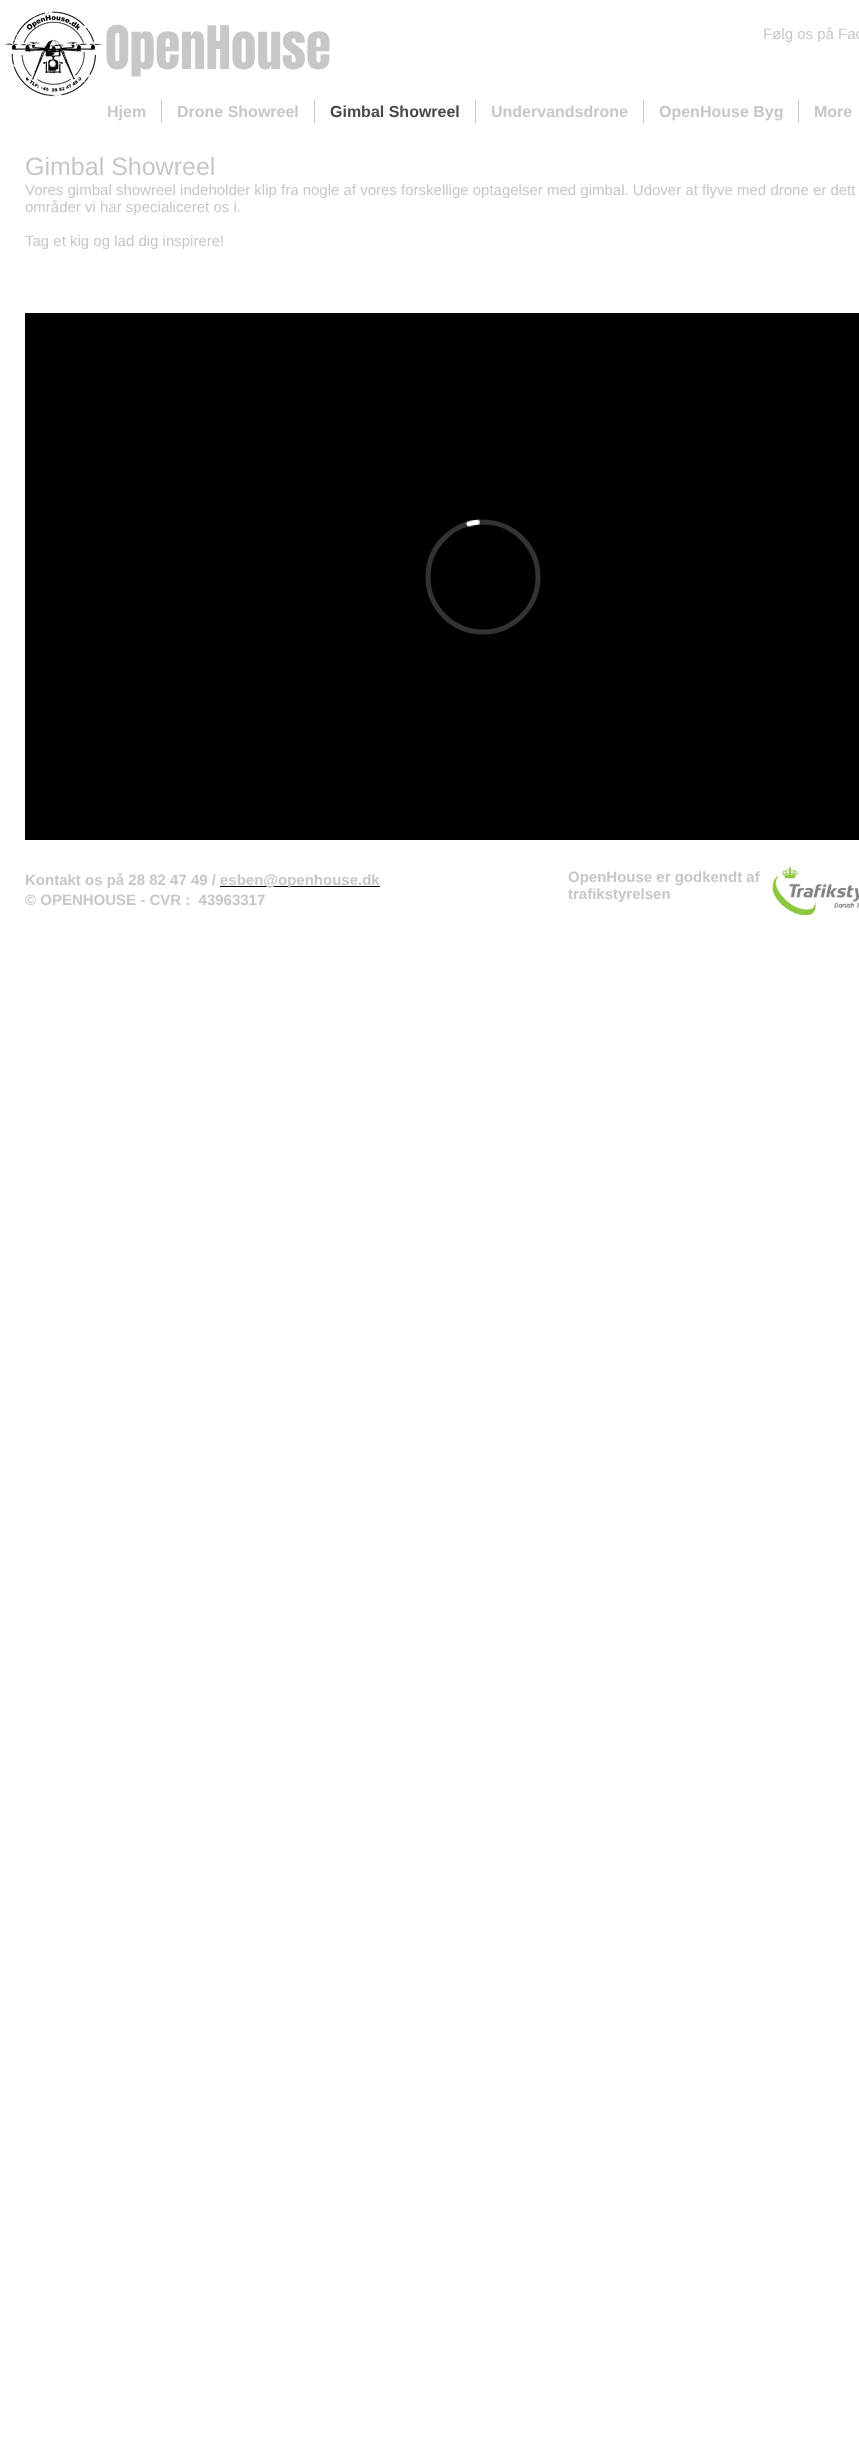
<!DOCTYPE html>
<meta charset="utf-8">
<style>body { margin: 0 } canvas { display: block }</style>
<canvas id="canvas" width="859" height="2464"></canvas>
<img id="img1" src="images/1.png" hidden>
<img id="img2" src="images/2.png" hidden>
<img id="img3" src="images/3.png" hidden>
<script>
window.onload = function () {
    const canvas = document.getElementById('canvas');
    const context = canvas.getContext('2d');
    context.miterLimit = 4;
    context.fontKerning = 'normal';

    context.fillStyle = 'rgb(255, 255, 255)';
    context.fillRect(0, 0, 859, 2464);
    context.drawImage(document.getElementById('img1'), 5, 11, 97, 86);
    context.fillStyle = 'rgb(199, 199, 199)';
    context.fillRect(161, 100, 1, 23);
    context.fillRect(314, 100, 1, 23);
    context.fillRect(475, 100, 1, 23);
    context.fillRect(643, 100, 1, 23);
    context.fillRect(798, 100, 1, 23);
    context.drawImage(document.getElementById('img2'), 25, 313, 834, 527);
    context.fillStyle = 'rgb(0, 0, 0)';
    context.fillRect(220, 886, 160, 1);
    context.drawImage(document.getElementById('img3'), 772, 867, 87, 48);
    context.font = '51px Anton';
    context.fillStyle = 'rgb(199, 199, 199)';
    context.fillText('OpenHouse', 105, 69);
    context.font = '15px Liberation Sans';
    context.fillText('Følg os på Fac', 763, 39);
    context.font = 'bold 16px Liberation Sans';
    context.fillText('Hjem', 107, 117);
    context.fillText('Drone Showreel', 177, 117);
    context.fillStyle = 'rgb(73, 73, 73)';
    context.fillText('Gimbal Showreel', 330, 117);
    context.fillStyle = 'rgb(199, 199, 199)';
    context.fillText('Undervandsdrone', 491, 117);
    context.fillText('OpenHouse Byg', 659, 117);
    context.fillText('More', 814, 117);
    context.font = '25px Liberation Sans';
    context.fillText('Gimbal Showreel', 25, 175);
    context.font = '15px Liberation Sans';
    context.fillText('Vores gimbal showreel indeholder klip fra nogle af vores forskellige optagelser med gimbal. Udover at flyve med drone er dett', 25, 195);
    context.fillText('områder vi har specialiceret os i.', 25, 212);
    context.fillText('Tag et kig og lad dig inspirere!', 25, 246);
    context.font = 'bold 15px Liberation Sans';
    context.fillText('Kontakt os på 28 82 47 49 /', 25, 885);
    context.fillText('esben@openhouse.dk', 220, 885);
    context.fillText('© OPENHOUSE - CVR :  43963317', 25, 905);
    context.fillText('OpenHouse er godkendt af', 568, 882);
    context.fillText('trafikstyrelsen', 568, 899);
};
</script>
